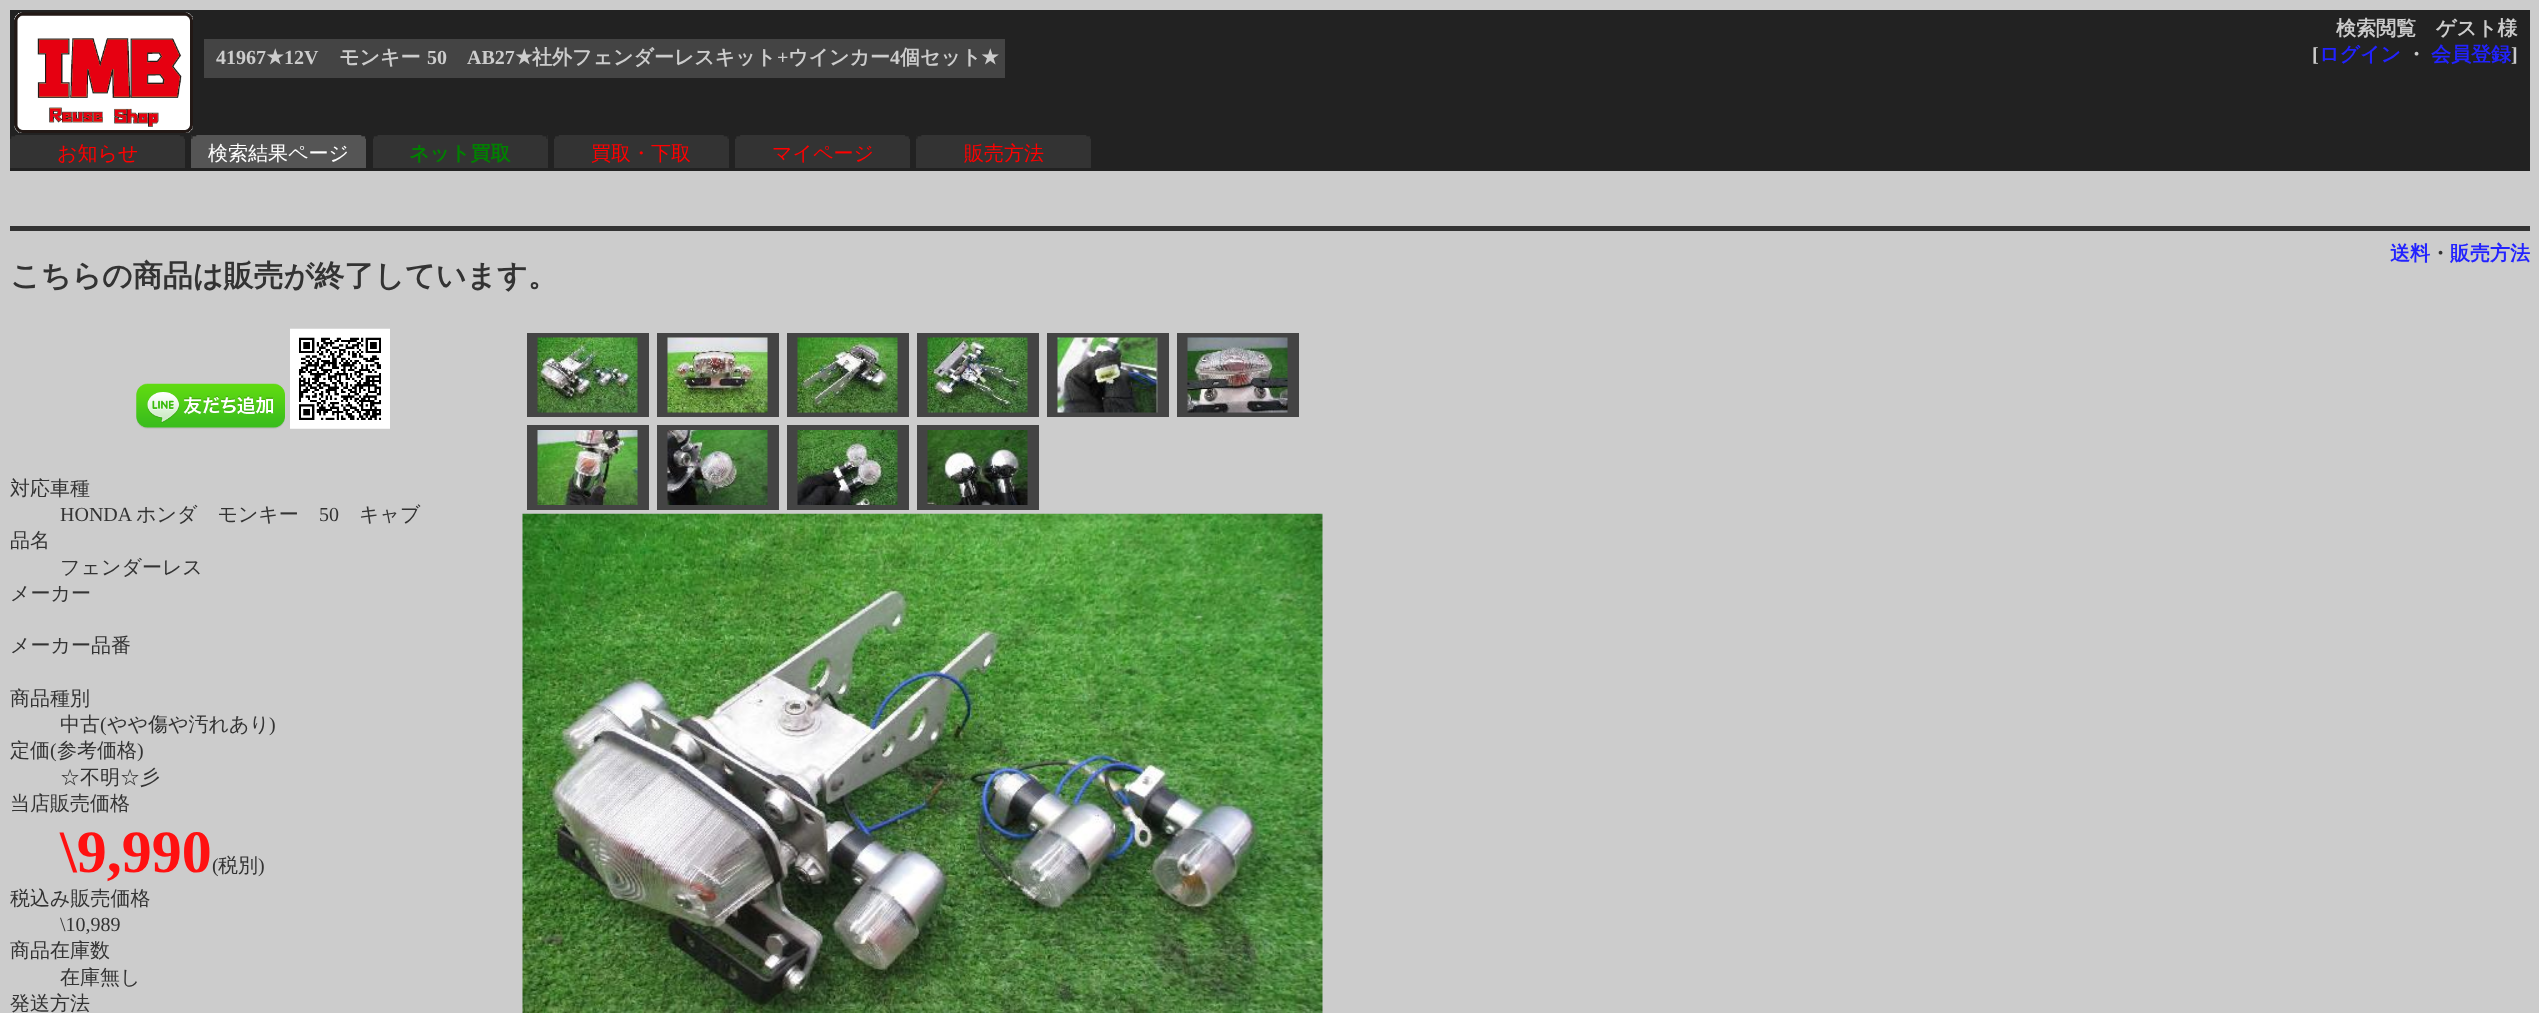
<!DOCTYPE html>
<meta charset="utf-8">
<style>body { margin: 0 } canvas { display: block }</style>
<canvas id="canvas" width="2539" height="1013"></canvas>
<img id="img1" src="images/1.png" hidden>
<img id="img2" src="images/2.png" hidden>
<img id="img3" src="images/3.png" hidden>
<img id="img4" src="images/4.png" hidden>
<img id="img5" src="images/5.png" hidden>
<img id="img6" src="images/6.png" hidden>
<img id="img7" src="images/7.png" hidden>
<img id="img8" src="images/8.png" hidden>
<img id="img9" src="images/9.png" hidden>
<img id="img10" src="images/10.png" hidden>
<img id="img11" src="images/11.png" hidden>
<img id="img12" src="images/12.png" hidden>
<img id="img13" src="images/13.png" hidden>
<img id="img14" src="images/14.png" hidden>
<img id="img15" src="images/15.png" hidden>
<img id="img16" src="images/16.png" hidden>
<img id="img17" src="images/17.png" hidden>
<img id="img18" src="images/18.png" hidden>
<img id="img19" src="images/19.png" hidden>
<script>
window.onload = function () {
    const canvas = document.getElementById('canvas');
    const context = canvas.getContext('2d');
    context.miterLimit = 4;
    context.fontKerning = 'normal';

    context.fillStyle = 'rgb(204, 204, 204)';
    context.fillRect(0, 0, 2539, 1013);
    context.fillStyle = 'rgb(34, 34, 34)';
    context.fillRect(10, 10, 2520, 161);
    context.drawImage(document.getElementById('img1'), 14, 12, 179, 121);
    context.fillStyle = 'rgb(68, 68, 68)';
    context.fillRect(204, 39, 801, 39);
    context.fillStyle = 'rgb(51, 51, 51)';
    context.fillRect(10, 135, 175, 33);
    context.drawImage(document.getElementById('img2'), 10, 135, 175, 4);
    context.fillStyle = 'rgb(85, 85, 85)';
    context.fillRect(191, 135, 175, 33);
    context.drawImage(document.getElementById('img3'), 191, 135, 175, 4);
    context.fillStyle = 'rgb(51, 51, 51)';
    context.fillRect(373, 135, 175, 33);
    context.drawImage(document.getElementById('img4'), 373, 135, 175, 4);
    context.fillRect(554, 135, 175, 33);
    context.drawImage(document.getElementById('img5'), 554, 135, 175, 4);
    context.fillRect(735, 135, 175, 33);
    context.drawImage(document.getElementById('img2'), 735, 135, 175, 4);
    context.fillRect(916, 135, 175, 33);
    context.drawImage(document.getElementById('img6'), 916, 135, 175, 4);
    context.fillRect(10, 226, 2520, 5);
    context.drawImage(document.getElementById('img7'), 136, 383, 149, 46);
    context.drawImage(document.getElementById('img8'), 290, 328, 100, 101);
    context.fillStyle = 'rgb(68, 68, 68)';
    context.fillRect(527, 333, 122, 84);
    context.drawImage(document.getElementById('img9'), 537, 337, 101, 76);
    context.fillRect(657, 333, 122, 84);
    context.drawImage(document.getElementById('img10'), 667, 337, 101, 76);
    context.fillRect(787, 333, 122, 84);
    context.drawImage(document.getElementById('img11'), 797, 337, 101, 76);
    context.fillRect(917, 333, 122, 84);
    context.drawImage(document.getElementById('img12'), 927, 337, 101, 76);
    context.fillRect(1047, 333, 122, 84);
    context.drawImage(document.getElementById('img13'), 1057, 337, 101, 76);
    context.fillRect(1177, 333, 122, 84);
    context.drawImage(document.getElementById('img14'), 1187, 337, 101, 76);
    context.fillRect(527, 425, 122, 85);
    context.drawImage(document.getElementById('img15'), 537, 430, 101, 75);
    context.fillRect(657, 425, 122, 85);
    context.drawImage(document.getElementById('img16'), 667, 430, 101, 75);
    context.fillRect(787, 425, 122, 85);
    context.drawImage(document.getElementById('img17'), 797, 430, 101, 75);
    context.fillRect(917, 425, 122, 85);
    context.drawImage(document.getElementById('img18'), 927, 430, 101, 75);
    context.drawImage(document.getElementById('img19'), 522, 513, 801, 500);
    context.font = 'bold 20px Liberation Serif';
    context.fillStyle = 'rgb(204, 204, 204)';
    context.fillText('41967', 216, 64);
    context.font = 'bold 20px DejaVu Sans';
    context.fillText('★', 266, 64);
    context.font = 'bold 20px Liberation Serif';
    context.fillText('12V', 284, 64);
    context.font = 'bold 20px WenQuanYi Zen Hei';
    context.fillText('モンキー', 339, 64);
    context.font = 'bold 20px Liberation Serif';
    context.fillText('50', 427, 64);
    context.fillText('AB27', 467, 64);
    context.font = 'bold 20px DejaVu Sans';
    context.fillText('★', 515, 64);
    context.font = 'bold 20px WenQuanYi Zen Hei';
    context.fillText('社外フェンダーレスキット', 532, 64);
    context.font = 'bold 20px Liberation Serif';
    context.fillText('+', 777, 64);
    context.font = 'bold 20px WenQuanYi Zen Hei';
    context.fillText('ウインカー', 788, 64);
    context.font = 'bold 20px Liberation Serif';
    context.fillText('4', 890, 64);
    context.font = 'bold 20px WenQuanYi Zen Hei';
    context.fillText('個セット', 900, 64);
    context.font = 'bold 20px DejaVu Sans';
    context.fillText('★', 981, 64);
    context.font = 'bold 20px WenQuanYi Zen Hei';
    context.fillText('検索閲覧　ゲスト様', 2336, 35);
    context.font = 'bold 20px Liberation Serif';
    context.fillText('[', 2312, 61);
    context.font = 'bold 20px WenQuanYi Zen Hei';
    context.fillStyle = 'rgb(34, 34, 255)';
    context.fillText('ログイン', 2319, 61);
    context.fillStyle = 'rgb(204, 204, 204)';
    context.fillText('・', 2406, 61);
    context.fillStyle = 'rgb(34, 34, 255)';
    context.fillText('会員登録', 2431, 61);
    context.font = 'bold 20px Liberation Serif';
    context.fillStyle = 'rgb(204, 204, 204)';
    context.fillText(']', 2511, 61);
    context.font = '500 20px WenQuanYi Zen Hei';
    context.fillStyle = 'rgb(255, 0, 0)';
    context.fillText('お知らせ', 57, 160);
    context.fillStyle = 'rgb(255, 255, 255)';
    context.fillText('検索結果ページ', 208, 160);
    context.font = 'bold 20px WenQuanYi Zen Hei';
    context.fillStyle = 'rgb(0, 128, 0)';
    context.fillText('ネット買取', 409, 160);
    context.font = '500 20px WenQuanYi Zen Hei';
    context.fillStyle = 'rgb(255, 0, 0)';
    context.fillText('買取・下取', 591, 160);
    context.fillText('マイページ', 772, 160);
    context.fillText('販売方法', 964, 160);
    context.font = 'bold 20px WenQuanYi Zen Hei';
    context.fillStyle = 'rgb(34, 34, 255)';
    context.fillText('送料', 2390, 260);
    context.fillStyle = 'rgb(51, 51, 51)';
    context.fillText('・', 2430, 260);
    context.fillStyle = 'rgb(34, 34, 255)';
    context.fillText('販売方法', 2450, 260);
    context.font = 'bold 30px WenQuanYi Zen Hei';
    context.fillStyle = 'rgb(51, 51, 51)';
    context.fillText('こちらの商品は販売が終了しています。', 10, 286);
    context.font = '500 20px WenQuanYi Zen Hei';
    context.fillText('対応車種', 10, 495);
    context.font = '20px Liberation Serif';
    context.fillText('HONDA', 60, 521);
    context.font = '500 20px WenQuanYi Zen Hei';
    context.fillText('ホンダ　モンキー', 136, 521);
    context.font = '20px Liberation Serif';
    context.fillText('50', 319, 521);
    context.font = '500 20px WenQuanYi Zen Hei';
    context.fillText('キャブ', 359, 521);
    context.fillText('品名', 10, 547);
    context.fillText('フェンダーレス', 60, 574);
    context.fillText('メーカー', 10, 600);
    context.fillText('メーカー品番', 10, 652);
    context.fillText('商品種別', 10, 705);
    context.fillText('中古', 60, 731);
    context.font = '20px Liberation Serif';
    context.fillText('(', 100, 731);
    context.font = '500 20px WenQuanYi Zen Hei';
    context.fillText('やや傷や汚れあり', 107, 731);
    context.font = '20px Liberation Serif';
    context.fillText(')', 269, 731);
    context.font = '500 20px WenQuanYi Zen Hei';
    context.fillText('定価', 10, 757);
    context.font = '20px Liberation Serif';
    context.fillText('(', 50, 757);
    context.font = '500 20px WenQuanYi Zen Hei';
    context.fillText('参考価格', 57, 757);
    context.font = '20px Liberation Serif';
    context.fillText(')', 137, 757);
    context.font = '500 20px WenQuanYi Zen Hei';
    context.fillText('☆不明☆彡', 60, 784);
    context.fillText('当店販売価格', 10, 810);
    context.font = 'bold 60px Liberation Serif';
    context.fillStyle = 'rgb(255, 17, 17)';
    context.fillText('\\9,990', 60, 872);
    context.font = '20px Liberation Serif';
    context.fillStyle = 'rgb(51, 51, 51)';
    context.fillText('(', 212, 872);
    context.font = '500 20px WenQuanYi Zen Hei';
    context.fillText('税別', 218, 872);
    context.font = '20px Liberation Serif';
    context.fillText(')', 258, 872);
    context.font = '500 20px WenQuanYi Zen Hei';
    context.fillText('税込み販売価格', 10, 905);
    context.font = '20px Liberation Serif';
    context.fillText('\\10,989', 60, 931);
    context.font = '500 20px WenQuanYi Zen Hei';
    context.fillText('商品在庫数', 10, 957);
    context.fillText('在庫無し', 60, 984);
    context.fillText('発送方法', 10, 1010);
};
</script>
